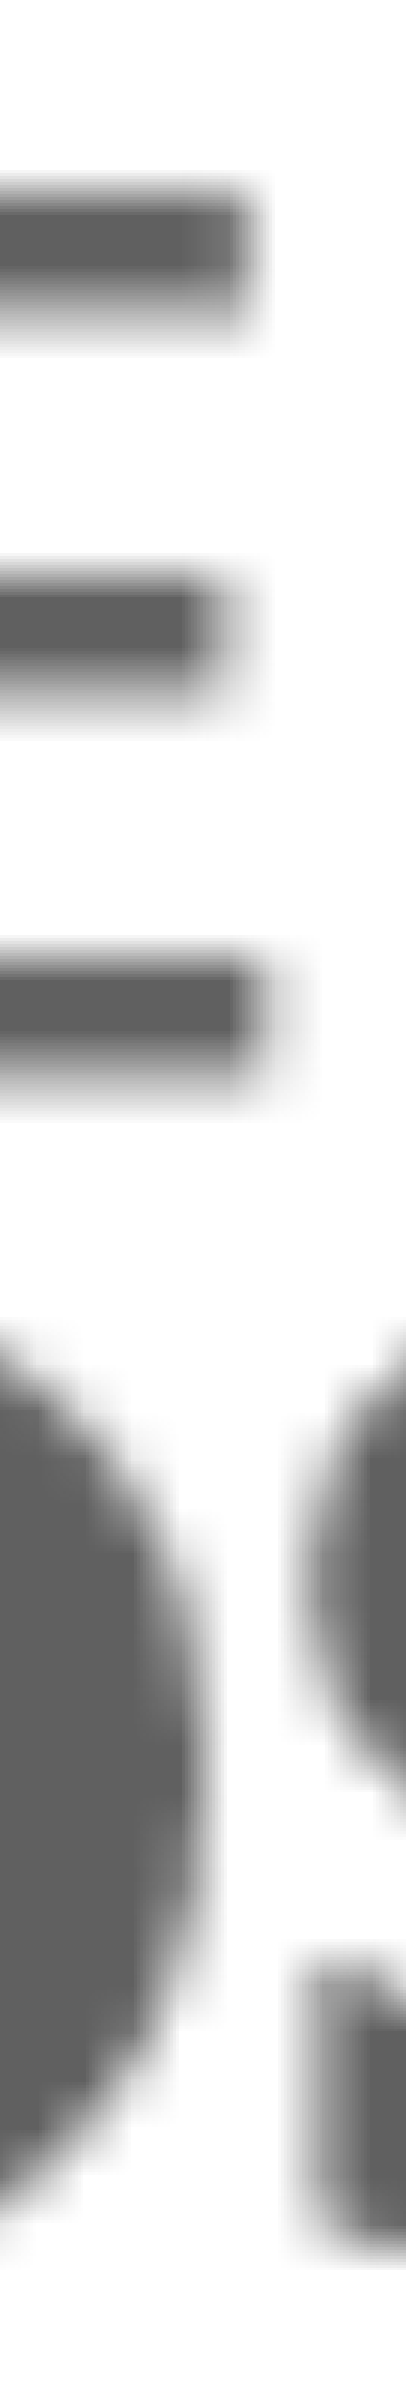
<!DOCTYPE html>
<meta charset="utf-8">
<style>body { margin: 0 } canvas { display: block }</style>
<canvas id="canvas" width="406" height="2390"></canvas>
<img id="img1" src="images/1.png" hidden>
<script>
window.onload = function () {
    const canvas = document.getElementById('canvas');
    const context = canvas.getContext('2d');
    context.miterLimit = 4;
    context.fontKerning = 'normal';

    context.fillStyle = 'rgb(255, 255, 255)';
    context.fillRect(0, 0, 406, 2390);
    context.drawImage(document.getElementById('img1'), 0, 170, 406, 2100);
};
</script>
